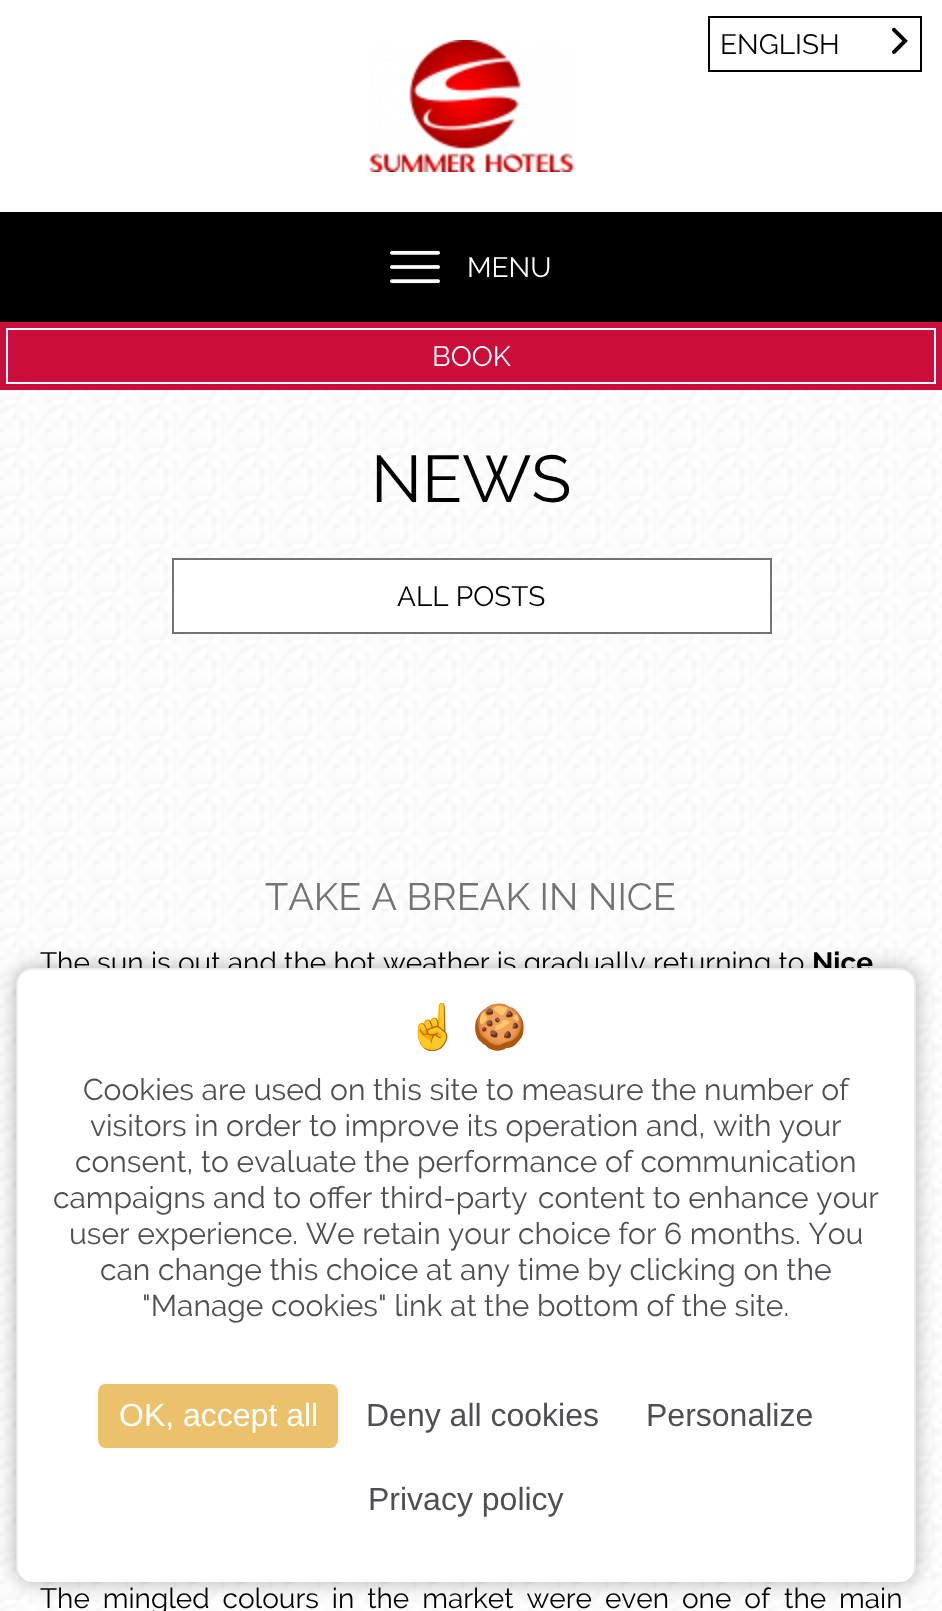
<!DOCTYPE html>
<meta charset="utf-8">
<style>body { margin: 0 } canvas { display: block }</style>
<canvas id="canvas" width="942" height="1611"></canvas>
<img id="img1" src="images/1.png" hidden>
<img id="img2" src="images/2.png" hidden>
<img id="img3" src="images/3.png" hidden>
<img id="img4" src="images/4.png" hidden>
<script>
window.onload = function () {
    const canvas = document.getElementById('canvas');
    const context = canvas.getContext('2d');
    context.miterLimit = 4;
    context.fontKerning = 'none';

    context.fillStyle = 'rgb(255, 255, 255)';
    context.fillRect(0, 0, 942, 1611);
    context.drawImage(document.getElementById('img1'), 0, 390, 942, 1221);
    context.drawImage(document.getElementById('img2'), 369, 40, 206, 132);
    context.strokeStyle = 'rgb(0, 0, 0)';
    context.lineWidth = 2;
    context.strokeRect(709, 17, 212, 54);
    context.drawImage(document.getElementById('img3'), 892, 27, 16, 27);
    context.fillStyle = 'rgb(0, 0, 1)';
    context.fillRect(0, 212, 942, 110);
    context.drawImage(document.getElementById('img4'), 390, 250, 50, 34);
    context.fillStyle = 'rgb(202, 13, 59)';
    context.fillRect(0, 322, 942, 68);
    context.strokeStyle = 'rgb(255, 255, 255)';
    context.strokeRect(7, 329, 928, 54);
    context.fillStyle = 'rgb(255, 255, 255)';
    context.beginPath();
    context.rect(173, 559, 598, 74);
    context.fill();
    context.strokeStyle = 'rgb(115, 115, 115)';
    context.stroke();
    context.fillStyle = 'rgba(0, 0, 0, 0.3)';
    context.filter = 'blur(10px)';
    context.beginPath();
    context.roundRect(16, 968, 900, 614, 16);
    context.fill();
    context.filter = 'none';
    context.font = '28px Raleway';
    context.fillStyle = 'rgb(0, 0, 0)';
    context.fillText('ENGLISH', 720, 54);
    context.fillStyle = 'rgb(255, 255, 255)';
    context.fillText('MENU', 467, 277);
    context.fillText('BOOK', 432, 366);
    context.font = '66px Raleway';
    context.fillStyle = 'rgb(0, 0, 0)';
    context.fillText('NEWS', 371, 502);
    context.font = '28px Raleway';
    context.fillText('ALL POSTS', 397, 606);
    context.font = '38px Raleway';
    context.fillStyle = 'rgb(115, 115, 115)';
    context.fillText('TAKE A BREAK IN NICE', 265, 910);
    context.wordSpacing = '0.1px';
    context.font = '28px Raleway';
    context.fillStyle = 'rgb(0, 0, 0)';
    context.fillText('The sun is out and the hot weather is gradually returning to', 40, 972);
    context.wordSpacing = '0px';
    context.font = 'bold 28px Raleway';
    context.fillText('Nice', 812, 972);
    context.wordSpacing = '5.75px';
    context.font = '28px Raleway';
    context.fillText('The mingled colours in the market were even one of', 40, 1608);
    context.fillText('the main', 784, 1608);
    context.fillStyle = 'rgb(255, 255, 255)';
    context.beginPath();
    context.roundRect(16, 968, 900, 614, 16);
    context.fill();
    context.fillStyle = 'rgba(0, 0, 0, 0.08)';
    context.beginPath();
    context.moveTo(32, 968);
    context.lineTo(900, 968);
    context.bezierCurveTo(909, 968, 916, 975, 916, 984);
    context.lineTo(916, 1566);
    context.bezierCurveTo(916, 1575, 909, 1582, 900, 1582);
    context.lineTo(32, 1582);
    context.bezierCurveTo(23, 1582, 16, 1575, 16, 1566);
    context.lineTo(16, 984);
    context.bezierCurveTo(16, 975, 23, 968, 32, 968);
    context.closePath();
    context.moveTo(32, 970);
    context.lineTo(900, 970);
    context.bezierCurveTo(908, 970, 914, 976, 914, 984);
    context.lineTo(914, 1566);
    context.bezierCurveTo(914, 1575, 908, 1582, 900, 1582);
    context.lineTo(32, 1582);
    context.bezierCurveTo(24, 1582, 18, 1575, 18, 1566);
    context.lineTo(18, 984);
    context.bezierCurveTo(18, 976, 24, 970, 32, 970);
    context.closePath();
    context.fill('evenodd');
    context.wordSpacing = '0px';
    context.font = '44px Noto Color Emoji';
    context.fillStyle = 'rgb(77, 79, 82)';
    context.fillText('☝️', 406, 1042);
    context.fillText('🍪', 472, 1042);
    context.font = '30px Raleway';
    context.fillText('Cookies are used on this site to measure the number of', 83, 1100);
    context.fillText('visitors in order to improve its operation and,', 90, 1136);
    context.fillText('with your', 713, 1136);
    context.fillText('consent, to evaluate the performance of communication', 75, 1172);
    context.fillText('campaigns and to offer third-party', 53, 1208);
    context.fillText('content to enhance your', 538, 1208);
    context.fillText('user experience. We retain', 69, 1244);
    context.fillText('your choice for 6 months. You', 448, 1244);
    context.fillText('can change this choice at any time by clicking on the', 100, 1280);
    context.fillText('"Manage cookies" link at the bottom of the site.', 142, 1316);
    context.fillStyle = 'rgb(235, 194, 107)';
    context.beginPath();
    context.roundRect(98, 1384, 240, 64, 8);
    context.fill();
    context.font = '32px Liberation Sans';
    context.fillStyle = 'rgb(255, 255, 255)';
    context.fillText('OK, accept all', 119, 1426);
    context.fillStyle = 'rgb(77, 79, 82)';
    context.fillText('Deny all cookies', 366, 1426);
    context.fillText('Personalize', 646, 1426);
    context.fillText('Privacy policy', 368, 1510);
};
</script>
